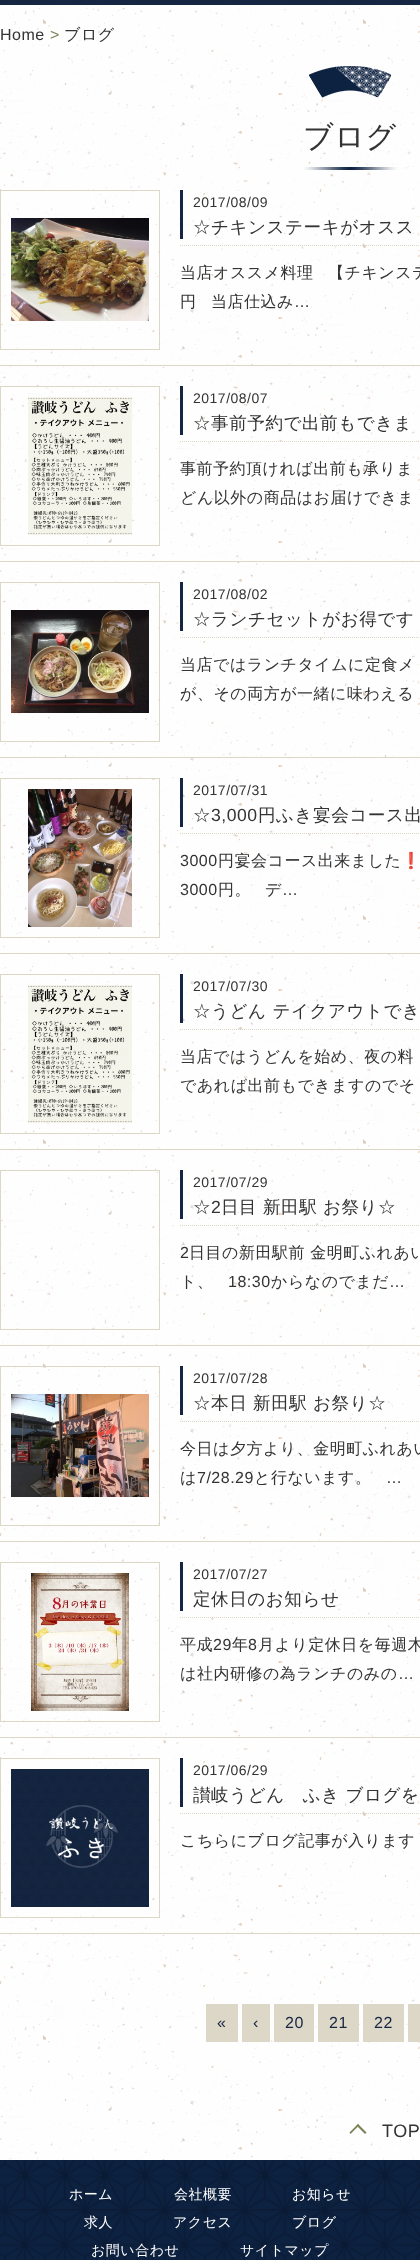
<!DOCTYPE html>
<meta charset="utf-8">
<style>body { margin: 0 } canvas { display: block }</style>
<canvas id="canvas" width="420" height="2260"></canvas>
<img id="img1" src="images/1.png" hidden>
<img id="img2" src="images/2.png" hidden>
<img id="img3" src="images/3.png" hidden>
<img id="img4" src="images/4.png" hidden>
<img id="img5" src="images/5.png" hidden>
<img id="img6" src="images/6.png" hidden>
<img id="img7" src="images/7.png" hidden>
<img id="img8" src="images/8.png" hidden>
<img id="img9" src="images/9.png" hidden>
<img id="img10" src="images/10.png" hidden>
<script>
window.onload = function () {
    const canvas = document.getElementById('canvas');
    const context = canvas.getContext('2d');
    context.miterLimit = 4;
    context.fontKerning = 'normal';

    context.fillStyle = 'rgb(255, 255, 255)';
    context.fillRect(0, 0, 420, 2260);
    context.drawImage(document.getElementById('img1'), 0, 5, 420, 2155);
    context.fillStyle = 'rgb(21, 38, 66)';
    context.fillRect(0, 0, 420, 5);
    context.drawImage(document.getElementById('img2'), 304, 66, 93, 104);
    context.fillStyle = 'rgb(221, 215, 200)';
    context.fillRect(0, 365, 420, 1);
    context.strokeStyle = 'rgb(221, 215, 200)';
    context.strokeRect(0.5, 190.5, 159, 159);
    context.drawImage(document.getElementById('img3'), 11, 218, 138, 103);
    context.fillStyle = 'rgb(21, 38, 66)';
    context.fillRect(180, 190, 3, 49);
    context.beginPath();
    context.moveTo(180, 245.5);
    context.lineTo(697, 245.5);
    context.setLineDash([1, 1]);
    context.stroke();
    context.fillStyle = 'rgb(221, 215, 200)';
    context.fillRect(0, 561, 420, 1);
    context.setLineDash([]);
    context.strokeRect(0.5, 386.5, 159, 159);
    context.drawImage(document.getElementById('img4'), 28, 397, 104, 138);
    context.fillStyle = 'rgb(21, 38, 66)';
    context.fillRect(180, 386, 3, 49);
    context.beginPath();
    context.moveTo(180, 441.5);
    context.lineTo(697, 441.5);
    context.setLineDash([1, 1]);
    context.stroke();
    context.fillStyle = 'rgb(221, 215, 200)';
    context.fillRect(0, 757, 420, 1);
    context.setLineDash([]);
    context.strokeRect(0.5, 582.5, 159, 159);
    context.drawImage(document.getElementById('img5'), 11, 610, 138, 103);
    context.fillStyle = 'rgb(21, 38, 66)';
    context.fillRect(180, 582, 3, 49);
    context.beginPath();
    context.moveTo(180, 637.5);
    context.lineTo(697, 637.5);
    context.setLineDash([1, 1]);
    context.stroke();
    context.fillStyle = 'rgb(221, 215, 200)';
    context.fillRect(0, 953, 420, 1);
    context.setLineDash([]);
    context.strokeRect(0.5, 778.5, 159, 159);
    context.drawImage(document.getElementById('img6'), 28, 789, 104, 138);
    context.fillStyle = 'rgb(21, 38, 66)';
    context.fillRect(180, 778, 3, 49);
    context.beginPath();
    context.moveTo(180, 833.5);
    context.lineTo(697, 833.5);
    context.setLineDash([1, 1]);
    context.stroke();
    context.fillStyle = 'rgb(221, 215, 200)';
    context.fillRect(0, 1149, 420, 1);
    context.setLineDash([]);
    context.strokeRect(0.5, 974.5, 159, 159);
    context.drawImage(document.getElementById('img4'), 28, 985, 104, 138);
    context.fillStyle = 'rgb(21, 38, 66)';
    context.fillRect(180, 974, 3, 49);
    context.beginPath();
    context.moveTo(180, 1029.5);
    context.lineTo(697, 1029.5);
    context.setLineDash([1, 1]);
    context.stroke();
    context.fillStyle = 'rgb(221, 215, 200)';
    context.fillRect(0, 1345, 420, 1);
    context.setLineDash([]);
    context.strokeRect(0.5, 1170.5, 159, 159);
    context.fillStyle = 'rgb(21, 38, 66)';
    context.fillRect(180, 1170, 3, 49);
    context.beginPath();
    context.moveTo(180, 1225.5);
    context.lineTo(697, 1225.5);
    context.setLineDash([1, 1]);
    context.stroke();
    context.fillStyle = 'rgb(221, 215, 200)';
    context.fillRect(0, 1541, 420, 1);
    context.setLineDash([]);
    context.strokeRect(0.5, 1366.5, 159, 159);
    context.drawImage(document.getElementById('img7'), 11, 1394, 138, 103);
    context.fillStyle = 'rgb(21, 38, 66)';
    context.fillRect(180, 1366, 3, 49);
    context.beginPath();
    context.moveTo(180, 1421.5);
    context.lineTo(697, 1421.5);
    context.setLineDash([1, 1]);
    context.stroke();
    context.fillStyle = 'rgb(221, 215, 200)';
    context.fillRect(0, 1737, 420, 1);
    context.setLineDash([]);
    context.strokeRect(0.5, 1562.5, 159, 159);
    context.drawImage(document.getElementById('img8'), 31, 1573, 98, 138);
    context.fillStyle = 'rgb(21, 38, 66)';
    context.fillRect(180, 1562, 3, 49);
    context.beginPath();
    context.moveTo(180, 1617.5);
    context.lineTo(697, 1617.5);
    context.setLineDash([1, 1]);
    context.stroke();
    context.fillStyle = 'rgb(221, 215, 200)';
    context.fillRect(0, 1933, 420, 1);
    context.setLineDash([]);
    context.strokeRect(0.5, 1758.5, 159, 159);
    context.drawImage(document.getElementById('img9'), 11, 1769, 138, 138);
    context.fillStyle = 'rgb(21, 38, 66)';
    context.fillRect(180, 1758, 3, 49);
    context.beginPath();
    context.moveTo(180, 1813.5);
    context.lineTo(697, 1813.5);
    context.setLineDash([1, 1]);
    context.stroke();
    context.fillStyle = 'rgb(221, 215, 200)';
    context.fillRect(206, 2004, 32, 38);
    context.fillRect(242, 2004, 28, 38);
    context.fillRect(274, 2004, 40, 38);
    context.fillRect(318, 2004, 41, 38);
    context.fillRect(363, 2004, 41, 38);
    context.fillRect(408, 2004, 12, 38);
    context.fillStyle = 'rgb(123, 128, 85)';
    context.beginPath();
    context.moveTo(349.5, 2132.5);
    context.lineTo(358, 2124);
    context.lineTo(359, 2125.5);
    context.lineTo(350.5, 2134);
    context.closePath();
    context.fill();
    context.beginPath();
    context.moveTo(356.5, 2125.5);
    context.lineTo(358, 2124);
    context.lineTo(366.5, 2132.5);
    context.lineTo(365, 2134);
    context.closePath();
    context.fill();
    context.drawImage(document.getElementById('img10'), 0, 2160, 420, 100);
    context.letterSpacing = '0.5px';
    context.font = '16px Liberation Sans';
    context.fillStyle = 'rgb(51, 51, 51)';
    context.fillText('Home', 0, 40);
    context.fillStyle = 'rgb(123, 128, 85)';
    context.fillText('>', 50, 40);
    context.font = '500 16px WenQuanYi Zen Hei';
    context.fillStyle = 'rgb(51, 51, 51)';
    context.fillText('ブログ', 64, 40);
    context.font = '500 30px WenQuanYi Zen Hei';
    context.fillText('ブログ', 303, 147);
    context.font = '14px Liberation Sans';
    context.fillText('2017/08/09', 193, 207);
    context.font = '500 17.6px WenQuanYi Zen Hei';
    context.fillText('☆チキンステーキがオスス', 193, 233);
    context.font = '500 16px WenQuanYi Zen Hei';
    context.fillText('当店オススメ料理', 180, 278);
    context.fillText('【チキンステ', 328, 278);
    context.fillText('円', 180, 307);
    context.fillText('当店仕込み', 211, 307);
    context.font = '16px Liberation Sans';
    context.fillText('…', 294, 307);
    context.font = '14px Liberation Sans';
    context.fillText('2017/08/07', 193, 403);
    context.font = '500 17.6px WenQuanYi Zen Hei';
    context.fillText('☆事前予約で出前もできま', 193, 429);
    context.font = '500 16px WenQuanYi Zen Hei';
    context.fillText('事前予約頂ければ出前も承りま', 180, 474);
    context.fillText('どん以外の商品はお届けできま', 180, 503);
    context.font = '14px Liberation Sans';
    context.fillText('2017/08/02', 193, 599);
    context.font = '500 17.6px WenQuanYi Zen Hei';
    context.fillText('☆ランチセットがお得です', 193, 625);
    context.font = '500 16px WenQuanYi Zen Hei';
    context.fillText('当店ではランチタイムに定食メ', 180, 670);
    context.fillText('が、その両方が一緒に味わえる', 180, 699);
    context.font = '14px Liberation Sans';
    context.fillText('2017/07/31', 193, 795);
    context.font = '500 17.6px WenQuanYi Zen Hei';
    context.fillText('☆', 193, 821);
    context.font = '17.6px Liberation Sans';
    context.fillText('3,000', 211, 821);
    context.font = '500 17.6px WenQuanYi Zen Hei';
    context.fillText('円ふき宴会コース出', 258, 821);
    context.font = '16px Liberation Sans';
    context.fillText('3000', 180, 866);
    context.font = '500 16px WenQuanYi Zen Hei';
    context.fillText('円宴会コース出来ました', 218, 866);
    context.font = '16px Noto Color Emoji';
    context.fillText('❗️', 401, 866);
    context.font = '16px Liberation Sans';
    context.fillText('3000', 180, 895);
    context.font = '500 16px WenQuanYi Zen Hei';
    context.fillText('円。', 218, 895);
    context.fillText('デ', 265, 895);
    context.font = '16px Liberation Sans';
    context.fillText('…', 282, 895);
    context.font = '14px Liberation Sans';
    context.fillText('2017/07/30', 193, 991);
    context.font = '500 17.6px WenQuanYi Zen Hei';
    context.fillText('☆うどん テイクアウトでき', 193, 1017);
    context.font = '500 16px WenQuanYi Zen Hei';
    context.fillText('当店ではうどんを始め、夜の料', 180, 1062);
    context.fillText('であれば出前もできますのでそ', 180, 1091);
    context.font = '14px Liberation Sans';
    context.fillText('2017/07/29', 193, 1187);
    context.font = '500 17.6px WenQuanYi Zen Hei';
    context.fillText('☆', 193, 1213);
    context.font = '17.6px Liberation Sans';
    context.fillText('2', 211, 1213);
    context.font = '500 17.6px WenQuanYi Zen Hei';
    context.fillText('日目 新田駅 お祭り☆', 221, 1213);
    context.font = '16px Liberation Sans';
    context.fillText('2', 180, 1258);
    context.font = '500 16px WenQuanYi Zen Hei';
    context.fillText('日目の新田駅前 金明町ふれあい', 189, 1258);
    context.fillText('ト、', 180, 1287);
    context.font = '16px Liberation Sans';
    context.fillText('18:30', 228, 1287);
    context.font = '500 16px WenQuanYi Zen Hei';
    context.fillText('からなのでまだ', 271, 1287);
    context.font = '16px Liberation Sans';
    context.fillText('…', 389, 1287);
    context.font = '14px Liberation Sans';
    context.fillText('2017/07/28', 193, 1383);
    context.font = '500 17.6px WenQuanYi Zen Hei';
    context.fillText('☆本日 新田駅 お祭り☆', 193, 1409);
    context.font = '500 16px WenQuanYi Zen Hei';
    context.fillText('今日は夕方より、金明町ふれあい', 180, 1454);
    context.fillText('は', 180, 1483);
    context.font = '16px Liberation Sans';
    context.fillText('7/28.29', 197, 1483);
    context.font = '500 16px WenQuanYi Zen Hei';
    context.fillText('と行ないます。', 254, 1483);
    context.font = '16px Liberation Sans';
    context.fillText('…', 386, 1483);
    context.font = '14px Liberation Sans';
    context.fillText('2017/07/27', 193, 1579);
    context.font = '500 17.6px WenQuanYi Zen Hei';
    context.fillText('定休日のお知らせ', 193, 1605);
    context.font = '500 16px WenQuanYi Zen Hei';
    context.fillText('平成', 180, 1650);
    context.font = '16px Liberation Sans';
    context.fillText('29', 213, 1650);
    context.font = '500 16px WenQuanYi Zen Hei';
    context.fillText('年', 232, 1650);
    context.font = '16px Liberation Sans';
    context.fillText('8', 248, 1650);
    context.font = '500 16px WenQuanYi Zen Hei';
    context.fillText('月より定休日を毎週木', 258, 1650);
    context.fillText('は社内研修の為ランチのみの', 180, 1679);
    context.font = '16px Liberation Sans';
    context.fillText('…', 398, 1679);
    context.font = '14px Liberation Sans';
    context.fillText('2017/06/29', 193, 1775);
    context.font = '500 17.6px WenQuanYi Zen Hei';
    context.fillText('讃岐うどん　ふき ブログを', 193, 1801);
    context.font = '500 16px WenQuanYi Zen Hei';
    context.fillText('こちらにブログ記事が入ります', 180, 1846);
    context.font = '16px Liberation Sans';
    context.fillStyle = 'rgb(21, 38, 66)';
    context.fillText('«', 217, 2028);
    context.fillText('‹', 253, 2028);
    context.fillText('20', 285, 2028);
    context.fillText('21', 329, 2028);
    context.fillText('22', 374, 2028);
    context.font = '18px Liberation Sans';
    context.fillStyle = 'rgb(51, 51, 51)';
    context.fillText('TOP', 382, 2137);
    context.font = '500 14px WenQuanYi Zen Hei';
    context.fillStyle = 'rgb(255, 255, 255)';
    context.fillText('ホーム', 69, 2199);
    context.fillText('会社概要', 174, 2199);
    context.fillText('お知らせ', 292, 2199);
    context.fillText('求人', 84, 2227);
    context.fillText('アクセス', 173, 2227);
    context.fillText('ブログ', 292, 2227);
    context.fillText('お問い合わせ', 91, 2255);
    context.fillText('サイトマップ', 240, 2255);
};
</script>
